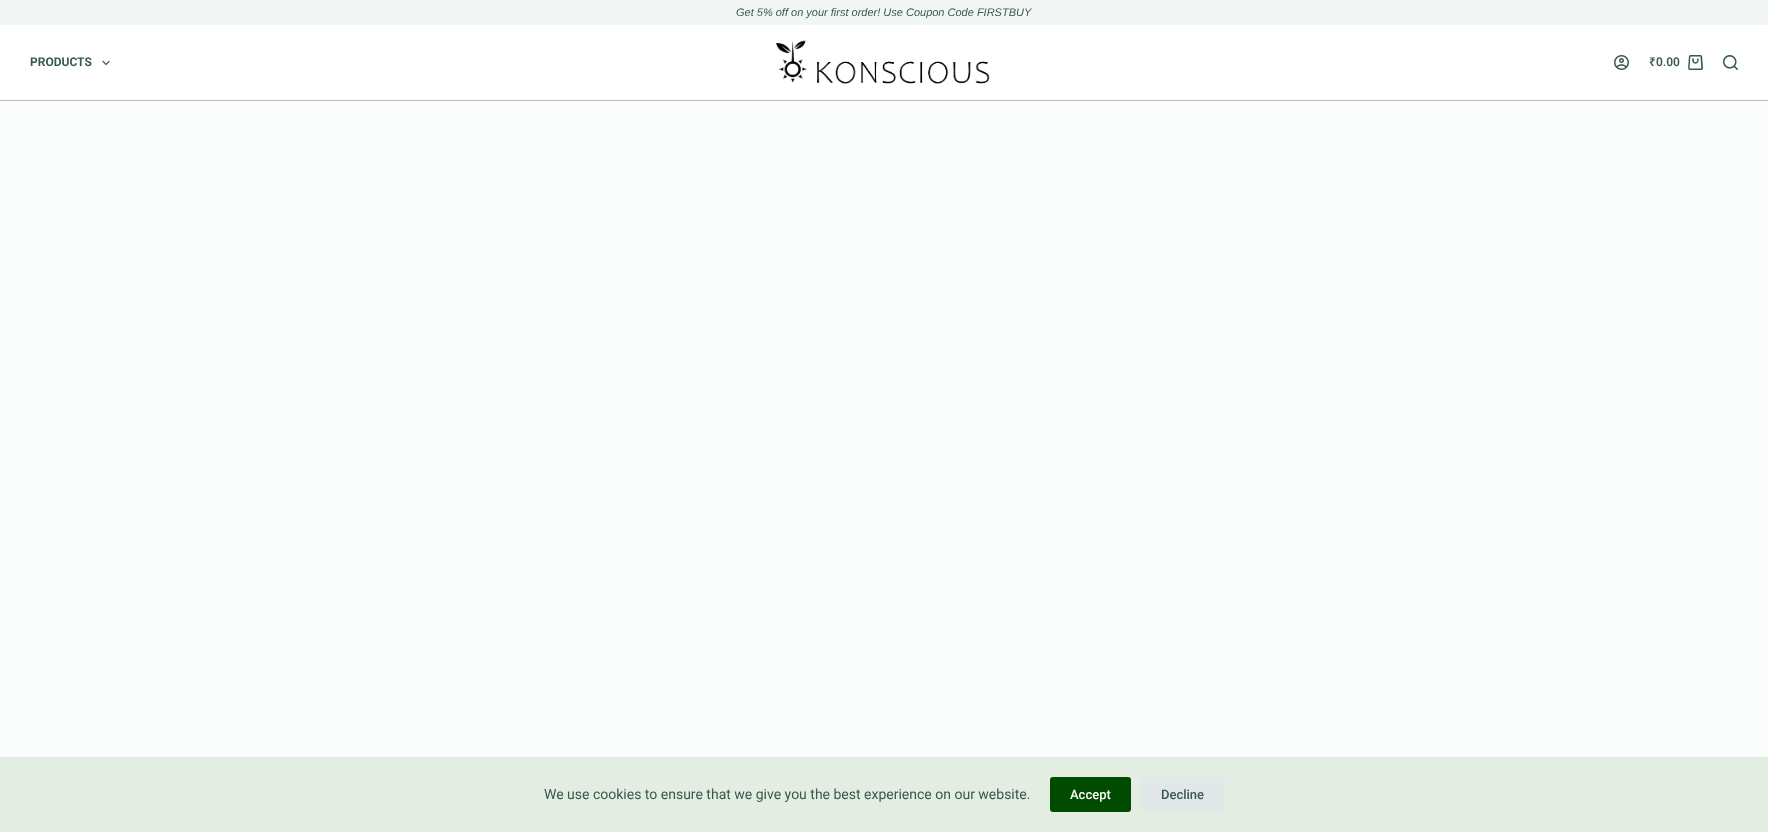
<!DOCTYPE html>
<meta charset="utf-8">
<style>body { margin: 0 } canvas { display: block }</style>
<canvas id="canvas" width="1768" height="832"></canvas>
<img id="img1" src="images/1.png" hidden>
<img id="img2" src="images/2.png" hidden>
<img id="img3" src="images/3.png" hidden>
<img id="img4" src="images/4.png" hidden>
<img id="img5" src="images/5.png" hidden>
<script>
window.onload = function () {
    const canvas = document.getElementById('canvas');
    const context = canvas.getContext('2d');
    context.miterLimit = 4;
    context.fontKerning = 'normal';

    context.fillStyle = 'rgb(251, 252, 252)';
    context.fillRect(0, 0, 1768, 832);
    context.fillStyle = 'rgb(242, 247, 246)';
    context.fillRect(0, 0, 1768, 25);
    context.fillStyle = 'rgb(255, 255, 255)';
    context.fillRect(0, 25, 1768, 75);
    context.fillStyle = 'rgb(186, 186, 186)';
    context.fillRect(0, 100, 1768, 1);
    context.drawImage(document.getElementById('img1'), 102, 60, 8, 6);
    context.drawImage(document.getElementById('img2'), 776, 40, 214, 44);
    context.drawImage(document.getElementById('img3'), 1614, 55, 15, 15);
    context.drawImage(document.getElementById('img4'), 1688, 55, 15, 15);
    context.drawImage(document.getElementById('img5'), 1723, 55, 15, 15);
    context.fillStyle = 'rgb(227, 237, 225)';
    context.fillRect(0, 757, 1768, 75);
    context.fillStyle = 'rgb(0, 75, 0)';
    context.beginPath();
    context.roundRect(1050, 777, 81, 35, 3);
    context.fill();
    context.fillStyle = 'rgb(225, 232, 231)';
    context.beginPath();
    context.roundRect(1141, 777, 83, 35, 3);
    context.fill();
    context.font = 'italic 11px Liberation Sans';
    context.fillStyle = 'rgb(54, 89, 81)';
    context.fillText('Get 5% off on your first order! Use Coupon Code FIRSTBUY', 736, 16);
    context.font = 'bold 12px Roboto';
    context.fillText('PRODUCTS', 30, 66);
    context.font = '600 12px Noto Sans';
    context.fillText('₹', 1649, 66);
    context.font = '600 12px Roboto';
    context.fillText('0.00', 1656, 66);
    context.font = '14px Roboto';
    context.fillText('We use cookies to ensure that we give you the best experience on our website.', 544, 799);
    context.font = '500 13px Roboto';
    context.fillStyle = 'rgb(255, 255, 255)';
    context.fillText('Accept', 1070, 799);
    context.fillStyle = 'rgb(54, 89, 81)';
    context.fillText('Decline', 1161, 799);
};
</script>
